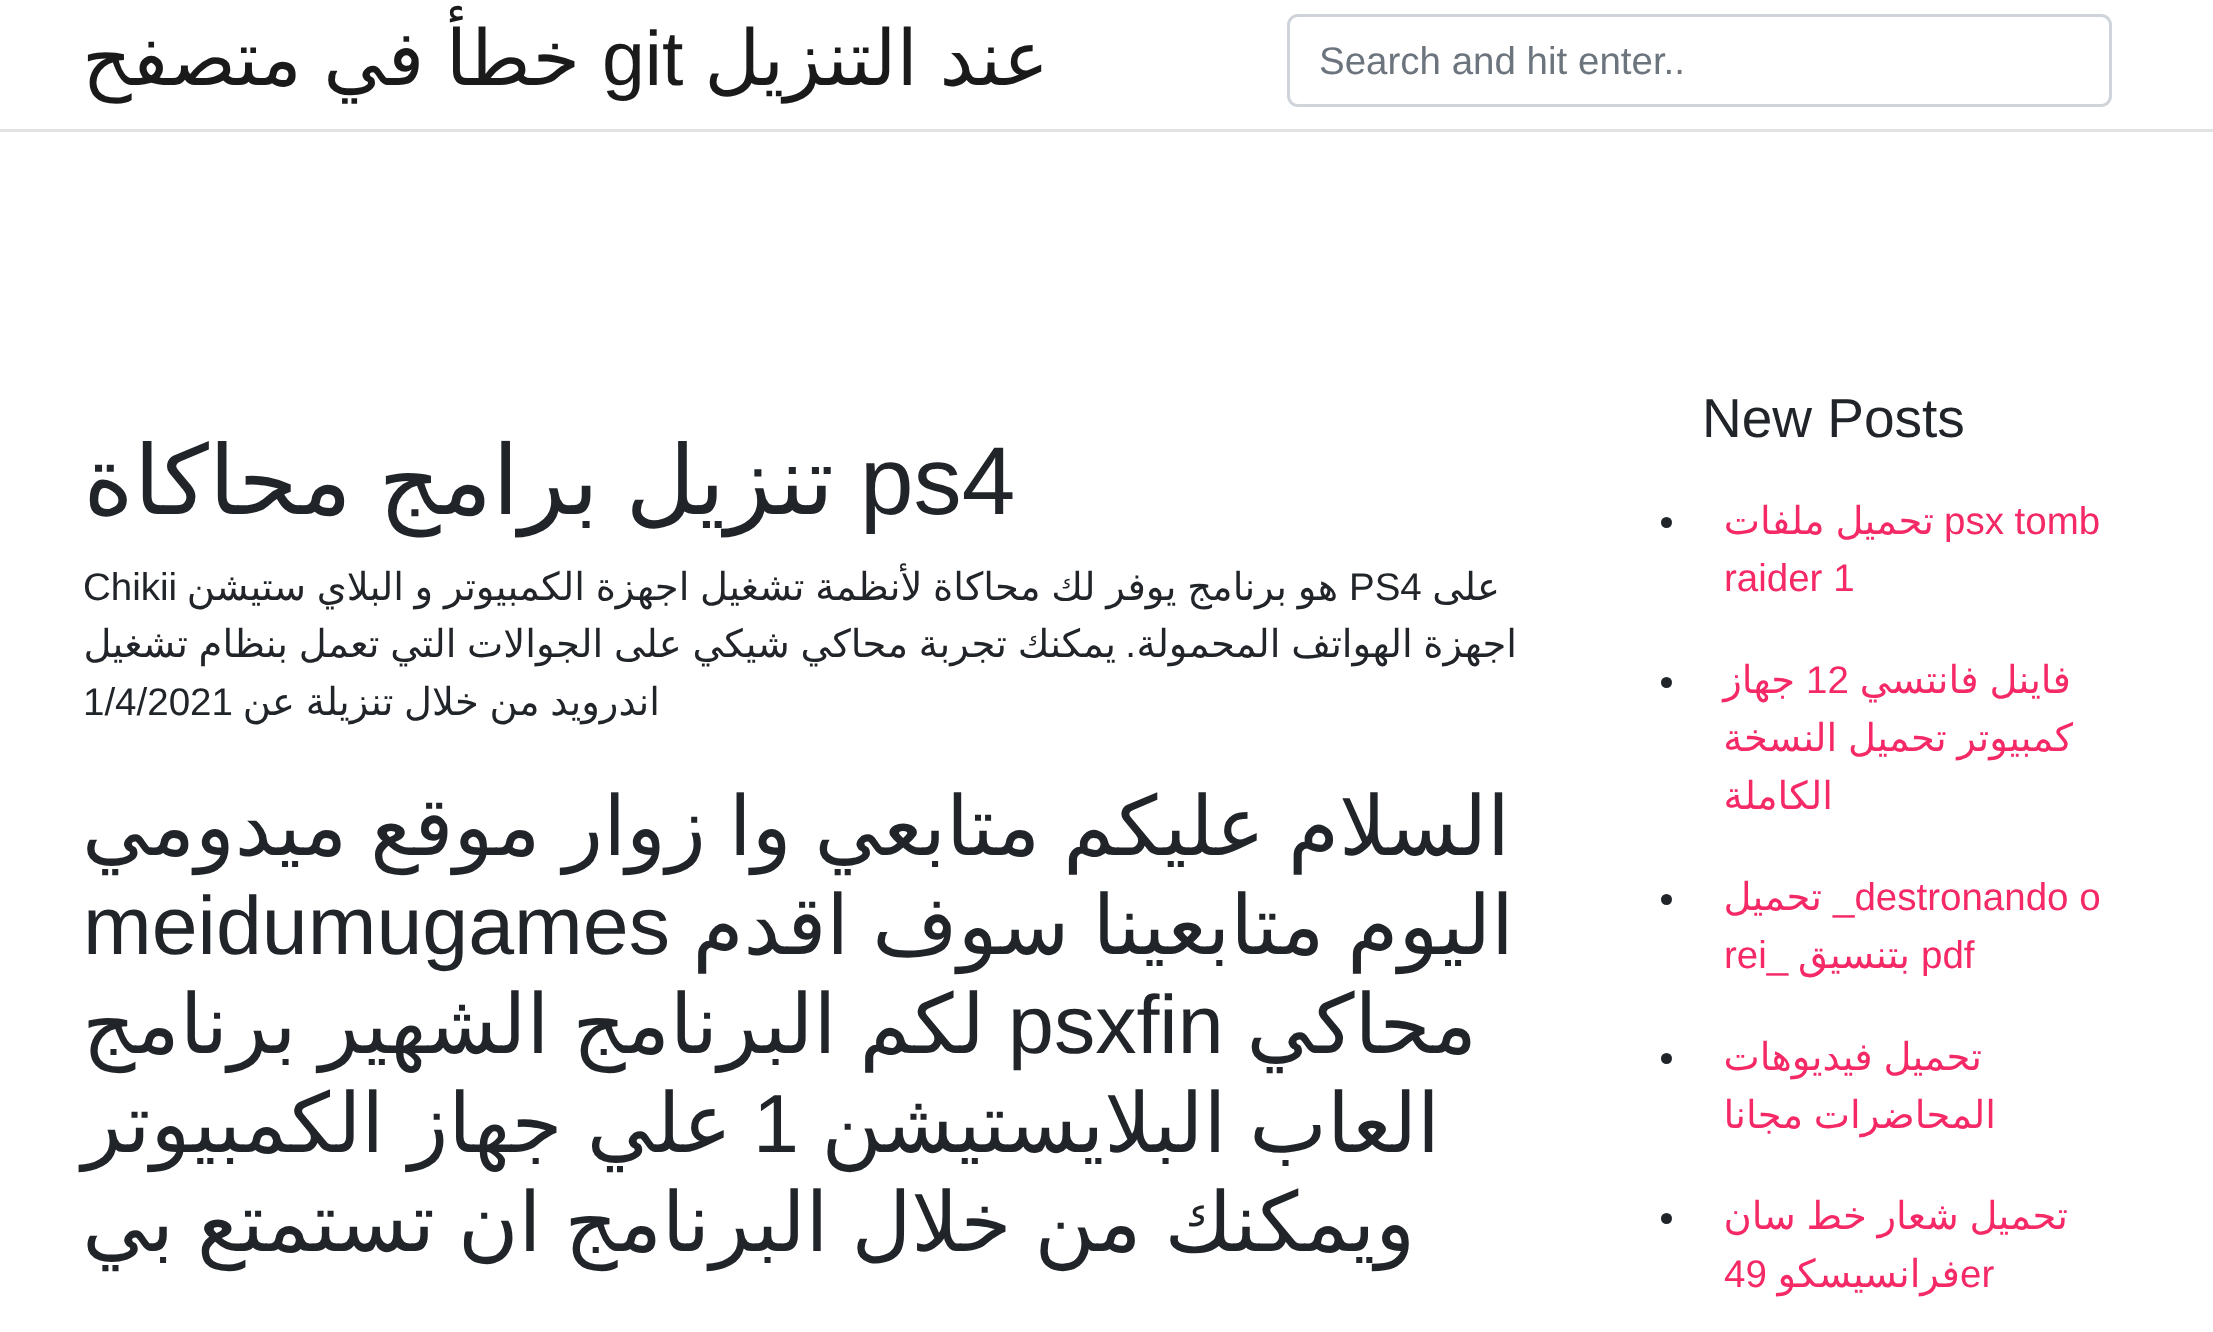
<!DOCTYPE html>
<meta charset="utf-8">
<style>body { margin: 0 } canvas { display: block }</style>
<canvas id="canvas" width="2213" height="1332"></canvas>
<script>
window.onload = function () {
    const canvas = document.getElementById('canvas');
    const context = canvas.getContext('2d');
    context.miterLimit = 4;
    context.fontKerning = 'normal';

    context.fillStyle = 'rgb(255, 255, 255)';
    context.fillRect(0, 0, 2213, 1332);
    context.fillStyle = 'rgb(225, 226, 227)';
    context.fillRect(0, 129, 2213, 3);
    context.beginPath();
    context.roundRect(1288.5, 15.5, 822, 90, 9.5);
    context.strokeStyle = 'rgb(206, 212, 218)';
    context.lineWidth = 3;
    context.stroke();
    context.fillStyle = 'rgb(33, 37, 41)';
    context.beginPath();
    context.arc(1666.5, 522.5, 5.5, 0, 2 * Math.PI);
    context.fill();
    context.beginPath();
    context.arc(1666.5, 682.5, 5.5, 0, 2 * Math.PI);
    context.fill();
    context.beginPath();
    context.arc(1666.5, 899.5, 5.5, 0, 2 * Math.PI);
    context.fill();
    context.beginPath();
    context.arc(1666.5, 1058.5, 5.5, 0, 2 * Math.PI);
    context.fill();
    context.beginPath();
    context.arc(1666.5, 1218.5, 5.5, 0, 2 * Math.PI);
    context.fill();
    context.font = '38.5px Liberation Sans';
    context.fillStyle = 'rgb(108, 117, 125)';
    context.fillText('Search and hit enter..', 1319, 74);
    context.wordSpacing = '-3px';
    context.direction = 'rtl';
    context.font = '77px DejaVu Sans';
    context.fillStyle = 'rgb(26, 26, 26)';
    context.fillText('عند التنزيل', 1049, 85);
    context.wordSpacing = '0px';
    context.direction = 'ltr';
    context.font = '77px Liberation Sans';
    context.fillText('git', 602, 85);
    context.wordSpacing = '-3px';
    context.direction = 'rtl';
    context.font = '77px DejaVu Sans';
    context.fillText('خطأ في متصفح', 580, 85);
    context.wordSpacing = '0px';
    context.direction = 'ltr';
    context.font = '55px Liberation Sans';
    context.fillStyle = 'rgb(33, 37, 41)';
    context.fillText('New Posts', 1702, 437);
    context.font = '38.5px Liberation Sans';
    context.fillStyle = 'rgb(244, 41, 102)';
    context.fillText('psx tomb', 1944, 534);
    context.wordSpacing = '-1.5px';
    context.direction = 'rtl';
    context.font = '38.5px DejaVu Sans';
    context.fillText('تحميل ملفات', 1934, 534);
    context.wordSpacing = '0px';
    context.direction = 'ltr';
    context.font = '38.5px Liberation Sans';
    context.fillText('raider 1', 1724, 591);
    context.wordSpacing = '-1.5px';
    context.direction = 'rtl';
    context.font = '38.5px DejaVu Sans';
    context.fillText('فاينل فانتسي', 2071, 693);
    context.wordSpacing = '0px';
    context.direction = 'ltr';
    context.font = '38.5px Liberation Sans';
    context.fillText('12', 1806, 693);
    context.direction = 'rtl';
    context.font = '38.5px DejaVu Sans';
    context.fillText('جهاز', 1795, 693);
    context.wordSpacing = '-1.5px';
    context.fillText('كمبيوتر تحميل النسخة', 2073, 751);
    context.wordSpacing = '0px';
    context.fillText('الكاملة', 1833, 809);
    context.direction = 'ltr';
    context.font = '38.5px Liberation Sans';
    context.fillText('_destronando o', 1833, 910);
    context.direction = 'rtl';
    context.font = '38.5px DejaVu Sans';
    context.fillText('تحميل', 1822, 910);
    context.direction = 'ltr';
    context.font = '38.5px Liberation Sans';
    context.fillText('pdf', 1921, 968);
    context.direction = 'rtl';
    context.font = '38.5px DejaVu Sans';
    context.fillText('بتنسيق', 1910, 968);
    context.direction = 'ltr';
    context.font = '38.5px Liberation Sans';
    context.fillText('rei_', 1724, 968);
    context.wordSpacing = '-1.5px';
    context.direction = 'rtl';
    context.font = '38.5px DejaVu Sans';
    context.fillText('تحميل فيديوهات', 1982, 1070);
    context.fillText('المحاضرات مجانا', 1996, 1128);
    context.fillText('تحميل شعار خط سان', 2068, 1229);
    context.wordSpacing = '0px';
    context.direction = 'ltr';
    context.font = '38.5px Liberation Sans';
    context.fillText('er', 1960, 1287);
    context.direction = 'rtl';
    context.font = '38.5px DejaVu Sans';
    context.fillText('فرانسيسكو', 1960, 1287);
    context.direction = 'ltr';
    context.font = '38.5px Liberation Sans';
    context.fillText('49', 1724, 1287);
    context.font = '96.25px Liberation Sans';
    context.fillStyle = 'rgb(33, 37, 41)';
    context.fillText('ps4', 860, 514);
    context.wordSpacing = '-4px';
    context.direction = 'rtl';
    context.font = '96.25px DejaVu Sans';
    context.fillText('تنزيل برامج محاكاة', 834, 514);
    context.wordSpacing = '0px';
    context.font = '38.5px DejaVu Sans';
    context.fillText('على', 1500, 600);
    context.wordSpacing = '-1.5px';
    context.fillText('هو برنامج يوفر لك محاكاة لأنظمة تشغيل اجهزة الكمبيوتر و البلاي ستيشن', 1338, 600);
    context.wordSpacing = '0px';
    context.direction = 'ltr';
    context.font = '38.5px Liberation Sans';
    context.fillText('PS4', 1349, 600);
    context.fillText('Chikii', 83, 600);
    context.wordSpacing = '-1.5px';
    context.direction = 'rtl';
    context.font = '38.5px DejaVu Sans';
    context.fillText('اجهزة الهواتف المحمولة', 1517, 657);
    context.wordSpacing = '0px';
    context.font = '38.5px Liberation Sans';
    context.fillText('.', 1136, 657);
    context.wordSpacing = '-1.5px';
    context.font = '38.5px DejaVu Sans';
    context.fillText('يمكنك تجربة محاكي شيكي على الجوالات التي تعمل بنظام تشغيل', 1116, 657);
    context.fillText('اندرويد من خلال تنزيلة عن', 660, 715);
    context.wordSpacing = '0px';
    context.direction = 'ltr';
    context.font = '38.5px Liberation Sans';
    context.fillText('1/4/2021', 83, 715);
    context.wordSpacing = '-3.25px';
    context.direction = 'rtl';
    context.font = '82.5px DejaVu Sans';
    context.fillText('السلام عليكم متابعي وا زوار موقع ميدومي', 1510, 855);
    context.fillText('اليوم متابعينا سوف اقدم', 1514, 954);
    context.wordSpacing = '0px';
    context.direction = 'ltr';
    context.font = '82.5px Liberation Sans';
    context.fillText('meidumugames', 83, 954);
    context.direction = 'rtl';
    context.font = '82.5px DejaVu Sans';
    context.fillText('محاكي', 1477, 1053);
    context.direction = 'ltr';
    context.font = '82.5px Liberation Sans';
    context.fillText('psxfin', 1008, 1053);
    context.wordSpacing = '-3.25px';
    context.direction = 'rtl';
    context.font = '82.5px DejaVu Sans';
    context.fillText('لكم البرنامج الشهير برنامج', 985, 1053);
    context.fillText('العاب البلايستيشن', 1440, 1152);
    context.wordSpacing = '0px';
    context.direction = 'ltr';
    context.font = '82.5px Liberation Sans';
    context.fillText('1', 753, 1152);
    context.wordSpacing = '-2px';
    context.direction = 'rtl';
    context.font = '82.5px DejaVu Sans';
    context.fillText('علي جهاز الكمبيوتر', 732, 1152);
    context.wordSpacing = '-3.25px';
    context.fillText('ويمكنك من خلال البرنامج ان تستمتع بي', 1415, 1251);
};
</script>
